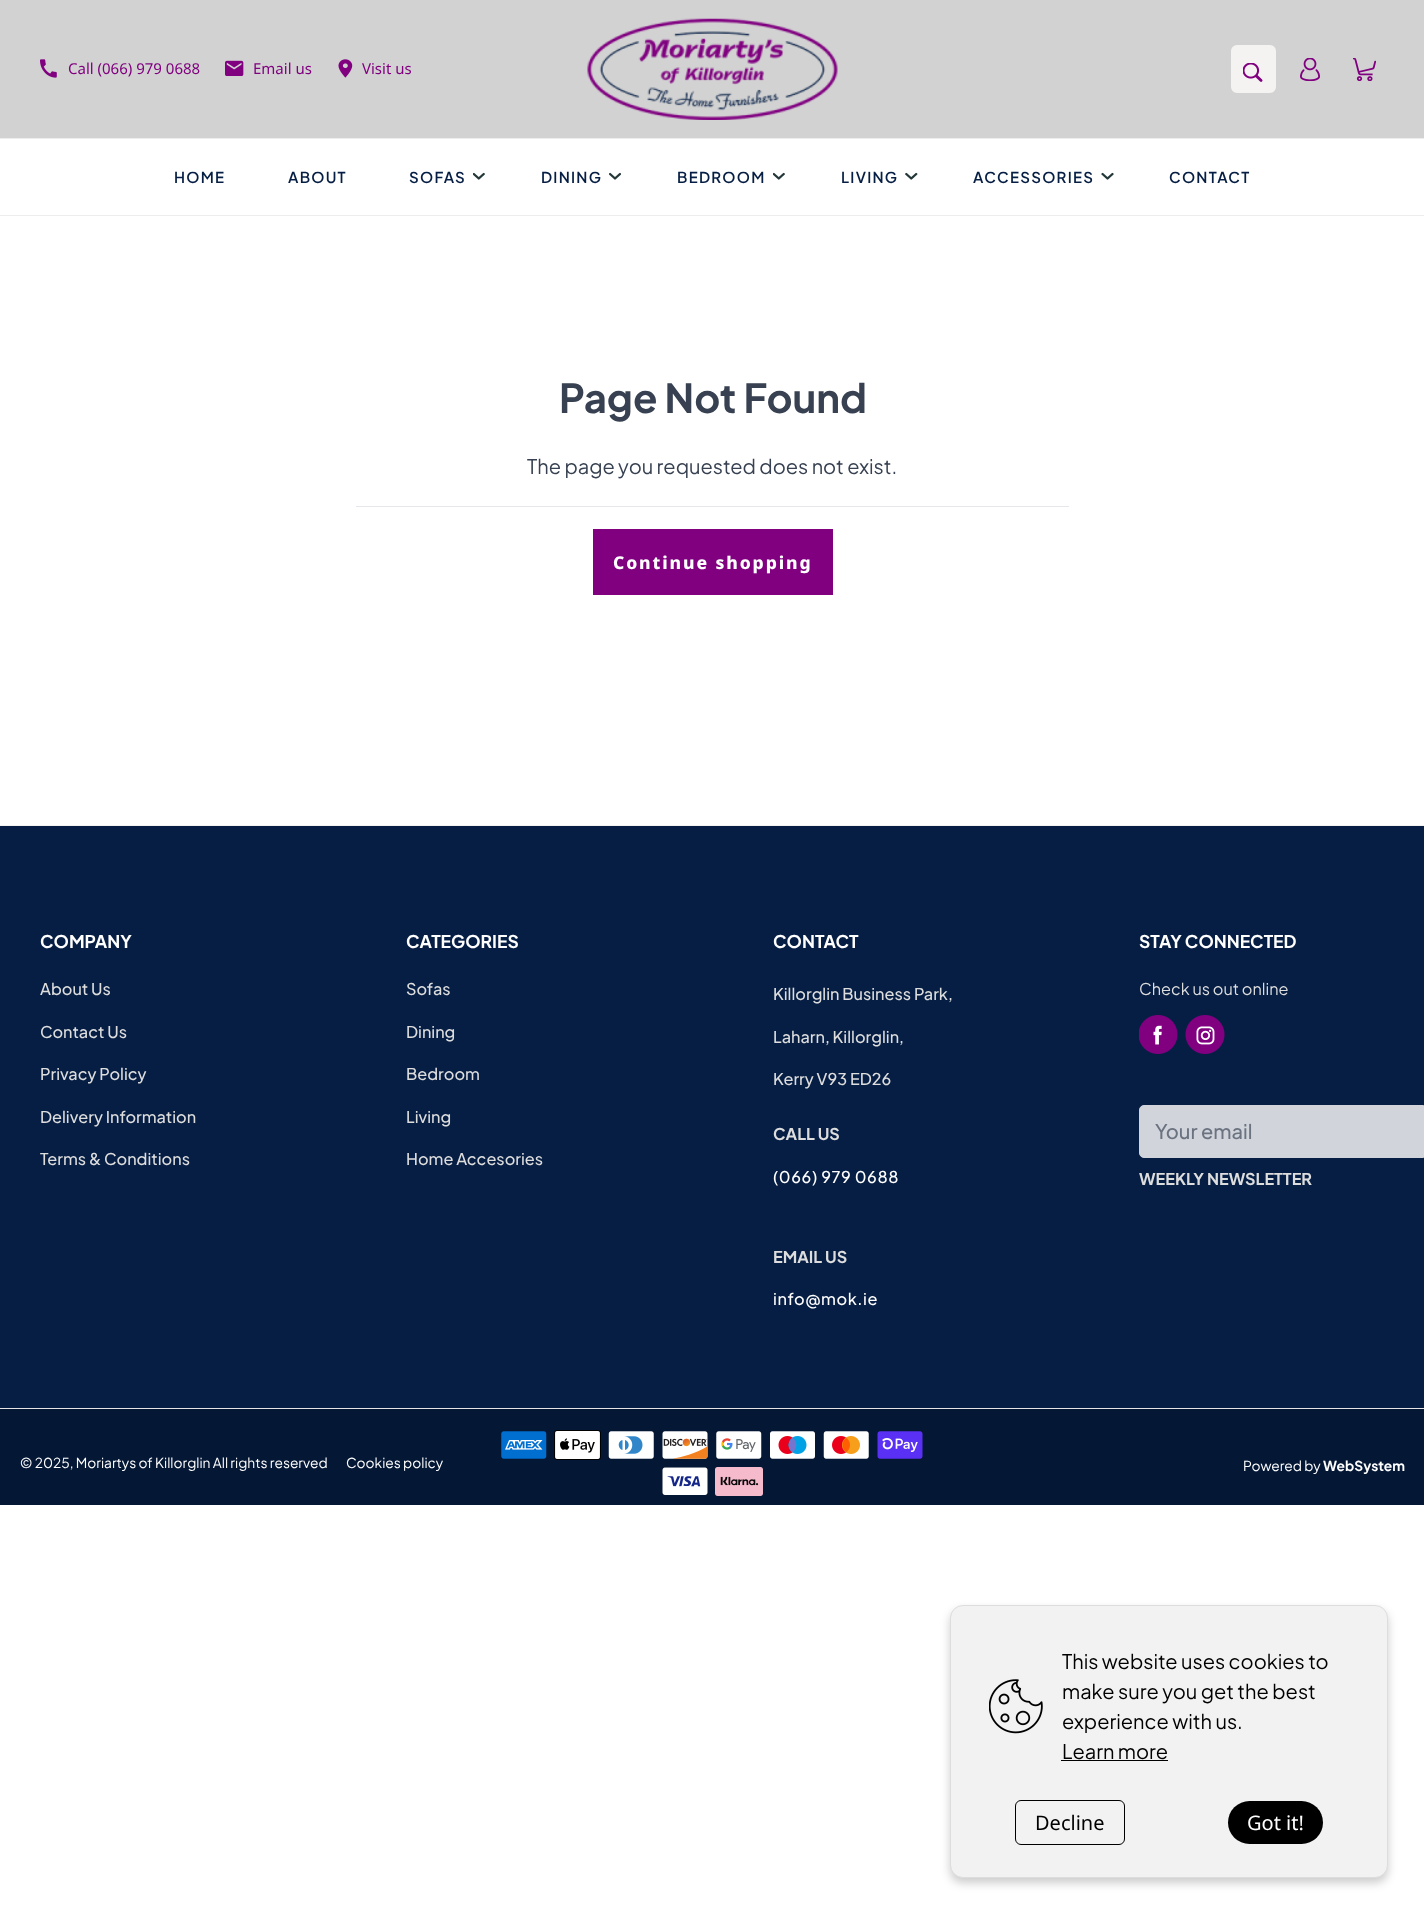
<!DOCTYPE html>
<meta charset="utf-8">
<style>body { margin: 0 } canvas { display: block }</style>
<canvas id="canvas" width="1424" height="1914"></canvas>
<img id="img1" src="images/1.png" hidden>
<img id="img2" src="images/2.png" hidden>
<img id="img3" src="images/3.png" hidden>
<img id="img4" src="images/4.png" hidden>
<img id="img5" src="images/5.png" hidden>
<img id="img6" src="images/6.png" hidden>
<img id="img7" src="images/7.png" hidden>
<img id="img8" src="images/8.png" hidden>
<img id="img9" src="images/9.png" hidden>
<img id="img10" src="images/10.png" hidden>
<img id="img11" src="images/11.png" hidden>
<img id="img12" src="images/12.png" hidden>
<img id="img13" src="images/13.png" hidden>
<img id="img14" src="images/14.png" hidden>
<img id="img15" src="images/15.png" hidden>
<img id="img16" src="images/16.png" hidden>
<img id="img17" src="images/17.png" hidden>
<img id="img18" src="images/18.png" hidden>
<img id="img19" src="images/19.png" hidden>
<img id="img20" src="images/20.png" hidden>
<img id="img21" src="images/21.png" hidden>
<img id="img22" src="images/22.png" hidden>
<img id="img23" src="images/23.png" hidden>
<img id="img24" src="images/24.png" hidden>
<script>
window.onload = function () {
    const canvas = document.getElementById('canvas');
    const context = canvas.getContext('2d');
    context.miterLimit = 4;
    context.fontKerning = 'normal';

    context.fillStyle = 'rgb(255, 255, 255)';
    context.fillRect(0, 0, 1424, 1914);
    context.fillStyle = 'rgb(210, 210, 210)';
    context.fillRect(0, 0, 1424, 138);
    context.drawImage(document.getElementById('img1'), 40, 59, 17, 19);
    context.drawImage(document.getElementById('img2'), 225, 60, 19, 16);
    context.drawImage(document.getElementById('img3'), 338, 59, 15, 19);
    context.drawImage(document.getElementById('img4'), 587, 18, 251, 102);
    context.fillStyle = 'rgb(245, 243, 241)';
    context.beginPath();
    context.roundRect(1233.5, 47.5, 40, 43, 3.5);
    context.fill();
    context.strokeStyle = 'rgb(245, 243, 241)';
    context.lineWidth = 5;
    context.stroke();
    context.drawImage(document.getElementById('img5'), 1243, 63, 20, 19);
    context.drawImage(document.getElementById('img6'), 1300, 58, 20, 23);
    context.drawImage(document.getElementById('img7'), 1353, 58, 23, 23);
    context.fillStyle = 'rgb(237, 237, 237)';
    context.fillRect(0, 138, 1424, 1);
    context.fillRect(0, 215, 1424, 1);
    context.drawImage(document.getElementById('img8'), 473, 172, 12, 8);
    context.drawImage(document.getElementById('img9'), 609, 172, 12, 8);
    context.drawImage(document.getElementById('img8'), 773, 172, 12, 8);
    context.drawImage(document.getElementById('img10'), 905, 172, 13, 8);
    context.drawImage(document.getElementById('img11'), 1101, 172, 13, 8);
    context.fillStyle = 'rgb(229, 231, 235)';
    context.fillRect(356, 506, 713, 1);
    context.fillStyle = 'rgb(128, 0, 128)';
    context.fillRect(593, 529, 240, 66);
    context.fillStyle = 'rgb(6, 30, 68)';
    context.fillRect(0, 826, 1424, 582);
    context.fillStyle = 'rgb(245, 243, 241)';
    context.fillRect(0, 825, 1424, 1);
    context.drawImage(document.getElementById('img12'), 1139, 1015, 39, 39);
    context.drawImage(document.getElementById('img13'), 1185, 1015, 40, 39);
    context.fillStyle = 'rgb(209, 213, 219)';
    context.beginPath();
    context.roundRect(1139.5, 1105.5, 284, 52, [4.5, 0, 0, 4.5]);
    context.fill();
    context.strokeStyle = 'rgb(209, 213, 219)';
    context.lineWidth = 1;
    context.stroke();
    context.fillStyle = 'rgb(4, 23, 53)';
    context.fillRect(0, 1409, 1424, 96);
    context.fillStyle = 'rgb(229, 229, 229)';
    context.fillRect(0, 1408, 1424, 1);
    context.drawImage(document.getElementById('img14'), 501, 1431, 46, 28);
    context.drawImage(document.getElementById('img15'), 554, 1430, 47, 30);
    context.drawImage(document.getElementById('img16'), 608, 1431, 46, 28);
    context.drawImage(document.getElementById('img17'), 662, 1431, 46, 28);
    context.drawImage(document.getElementById('img18'), 716, 1431, 46, 28);
    context.drawImage(document.getElementById('img19'), 770, 1431, 45, 28);
    context.drawImage(document.getElementById('img20'), 823, 1431, 46, 28);
    context.drawImage(document.getElementById('img21'), 877, 1431, 46, 28);
    context.drawImage(document.getElementById('img22'), 662, 1467, 46, 28);
    context.drawImage(document.getElementById('img23'), 715, 1467, 48, 29);
    context.fillStyle = 'rgba(0, 0, 0, 0.2)';
    context.filter = 'blur(5px)';
    context.beginPath();
    context.roundRect(950, 1610, 438, 273, 13);
    context.fill();
    context.filter = 'none';
    context.fillStyle = 'rgb(242, 242, 242)';
    context.beginPath();
    context.roundRect(950.5, 1605.5, 437, 272, 12.5);
    context.fill();
    context.strokeStyle = 'rgb(221, 221, 221)';
    context.stroke();
    context.drawImage(document.getElementById('img24'), 989, 1679, 54, 55);
    context.fillStyle = 'rgb(0, 0, 0)';
    context.fillRect(1061, 1760, 107, 1);
    context.beginPath();
    context.roundRect(1015.5, 1800.5, 109, 44, 5.5);
    context.strokeStyle = 'rgb(0, 0, 0)';
    context.stroke();
    context.beginPath();
    context.roundRect(1228, 1801, 95, 43, 21.5);
    context.fill();
    context.font = '15px Noto Sans';
    context.fillStyle = 'rgb(128, 0, 128)';
    context.fillText('Call (066) 979 0688', 68, 74);
    context.fillText('Email us', 253, 74);
    context.fillText('Visit us', 362, 74);
    context.letterSpacing = '1.25px';
    context.font = '600 15px Plus Jakarta Sans';
    context.fillStyle = 'rgb(6, 30, 68)';
    context.fillText('HOME', 174, 183);
    context.fillText('ABOUT', 288, 183);
    context.fillText('SOFAS', 409, 183);
    context.fillText('DINING', 541, 183);
    context.fillText('BEDROOM', 677, 183);
    context.fillText('LIVING', 841, 183);
    context.fillText('ACCESSORIES', 973, 183);
    context.fillText('CONTACT', 1169, 183);
    context.letterSpacing = '0px';
    context.font = 'bold 40px Plus Jakarta Sans';
    context.fillStyle = 'rgb(55, 65, 81)';
    context.fillText('Page Not Found', 559, 413);
    context.font = '20px Plus Jakarta Sans';
    context.fillText('The page you requested does not exist.', 527, 474);
    context.letterSpacing = '1.9px';
    context.font = '800 17.5px Noto Sans';
    context.fillStyle = 'rgb(255, 255, 255)';
    context.fillText('Continue shopping', 613, 569);
    context.letterSpacing = '0px';
    context.font = 'bold 17.5px Plus Jakarta Sans';
    context.fillText('COMPANY', 40, 948);
    context.font = '500 16.25px Plus Jakarta Sans';
    context.fillStyle = 'rgb(221, 221, 221)';
    context.fillText('About Us', 40, 995);
    context.fillText('Contact Us', 40, 1038);
    context.fillText('Privacy Policy', 40, 1080);
    context.fillText('Delivery Information', 40, 1123);
    context.fillText('Terms & Conditions', 40, 1165);
    context.font = 'bold 17.5px Plus Jakarta Sans';
    context.fillStyle = 'rgb(255, 255, 255)';
    context.fillText('CATEGORIES', 406, 948);
    context.font = '500 16.25px Plus Jakarta Sans';
    context.fillStyle = 'rgb(221, 221, 221)';
    context.fillText('Sofas', 406, 995);
    context.fillText('Dining', 406, 1038);
    context.fillText('Bedroom', 406, 1080);
    context.fillText('Living', 406, 1123);
    context.fillText('Home Accesories', 406, 1165);
    context.font = 'bold 17.5px Plus Jakarta Sans';
    context.fillStyle = 'rgb(255, 255, 255)';
    context.fillText('CONTACT', 773, 948);
    context.font = '500 16.25px Plus Jakarta Sans';
    context.fillStyle = 'rgb(221, 221, 221)';
    context.fillText('Killorglin Business Park,', 773, 1000);
    context.fillText('Laharn, Killorglin,', 773, 1043);
    context.fillText('Kerry V93 ED26', 773, 1085);
    context.font = 'bold 16.25px Plus Jakarta Sans';
    context.fillText('CALL US', 773, 1140);
    context.letterSpacing = '0.6px';
    context.font = '500 16.25px Plus Jakarta Sans';
    context.fillStyle = 'rgb(255, 255, 255)';
    context.fillText('(066) 979 0688', 773, 1183);
    context.letterSpacing = '0px';
    context.font = 'bold 16.25px Plus Jakarta Sans';
    context.fillStyle = 'rgb(221, 221, 221)';
    context.fillText('EMAIL US', 773, 1263);
    context.letterSpacing = '0.6px';
    context.font = '500 16.25px Plus Jakarta Sans';
    context.fillStyle = 'rgb(255, 255, 255)';
    context.fillText('info@mok.ie', 773, 1305);
    context.letterSpacing = '0px';
    context.font = 'bold 17.5px Plus Jakarta Sans';
    context.fillText('STAY CONNECTED', 1139, 948);
    context.font = '16.25px Plus Jakarta Sans';
    context.fillStyle = 'rgb(221, 221, 221)';
    context.fillText('Check us out online', 1139, 995);
    context.font = '500 20px Plus Jakarta Sans';
    context.fillStyle = 'rgb(107, 114, 128)';
    context.fillText('Your email', 1155, 1139);
    context.font = 'bold 16.25px Plus Jakarta Sans';
    context.fillStyle = 'rgb(221, 221, 221)';
    context.fillText('WEEKLY NEWSLETTER', 1139, 1185);
    context.font = '13.75px Plus Jakarta Sans';
    context.fillStyle = 'rgb(255, 255, 255)';
    context.fillText('© 2025, Moriartys of Killorglin All rights reserved', 20, 1468);
    context.fillText('Cookies policy', 346, 1468);
    context.fillText('Powered by', 1243, 1471);
    context.font = 'bold 13.75px Plus Jakarta Sans';
    context.fillText('WebSystem', 1323, 1471);
    context.font = '20px Plus Jakarta Sans';
    context.fillStyle = 'rgb(0, 0, 0)';
    context.fillText('This website uses cookies to', 1062, 1669);
    context.fillText('make sure you get the best', 1062, 1699);
    context.fillText('experience with us.', 1062, 1729);
    context.fillText('Learn more', 1062, 1759);
    context.font = '20px Noto Sans';
    context.fillText('Decline', 1035, 1830);
    context.fillStyle = 'rgb(255, 255, 255)';
    context.fillText('Got it!', 1247, 1830);
};
</script>
